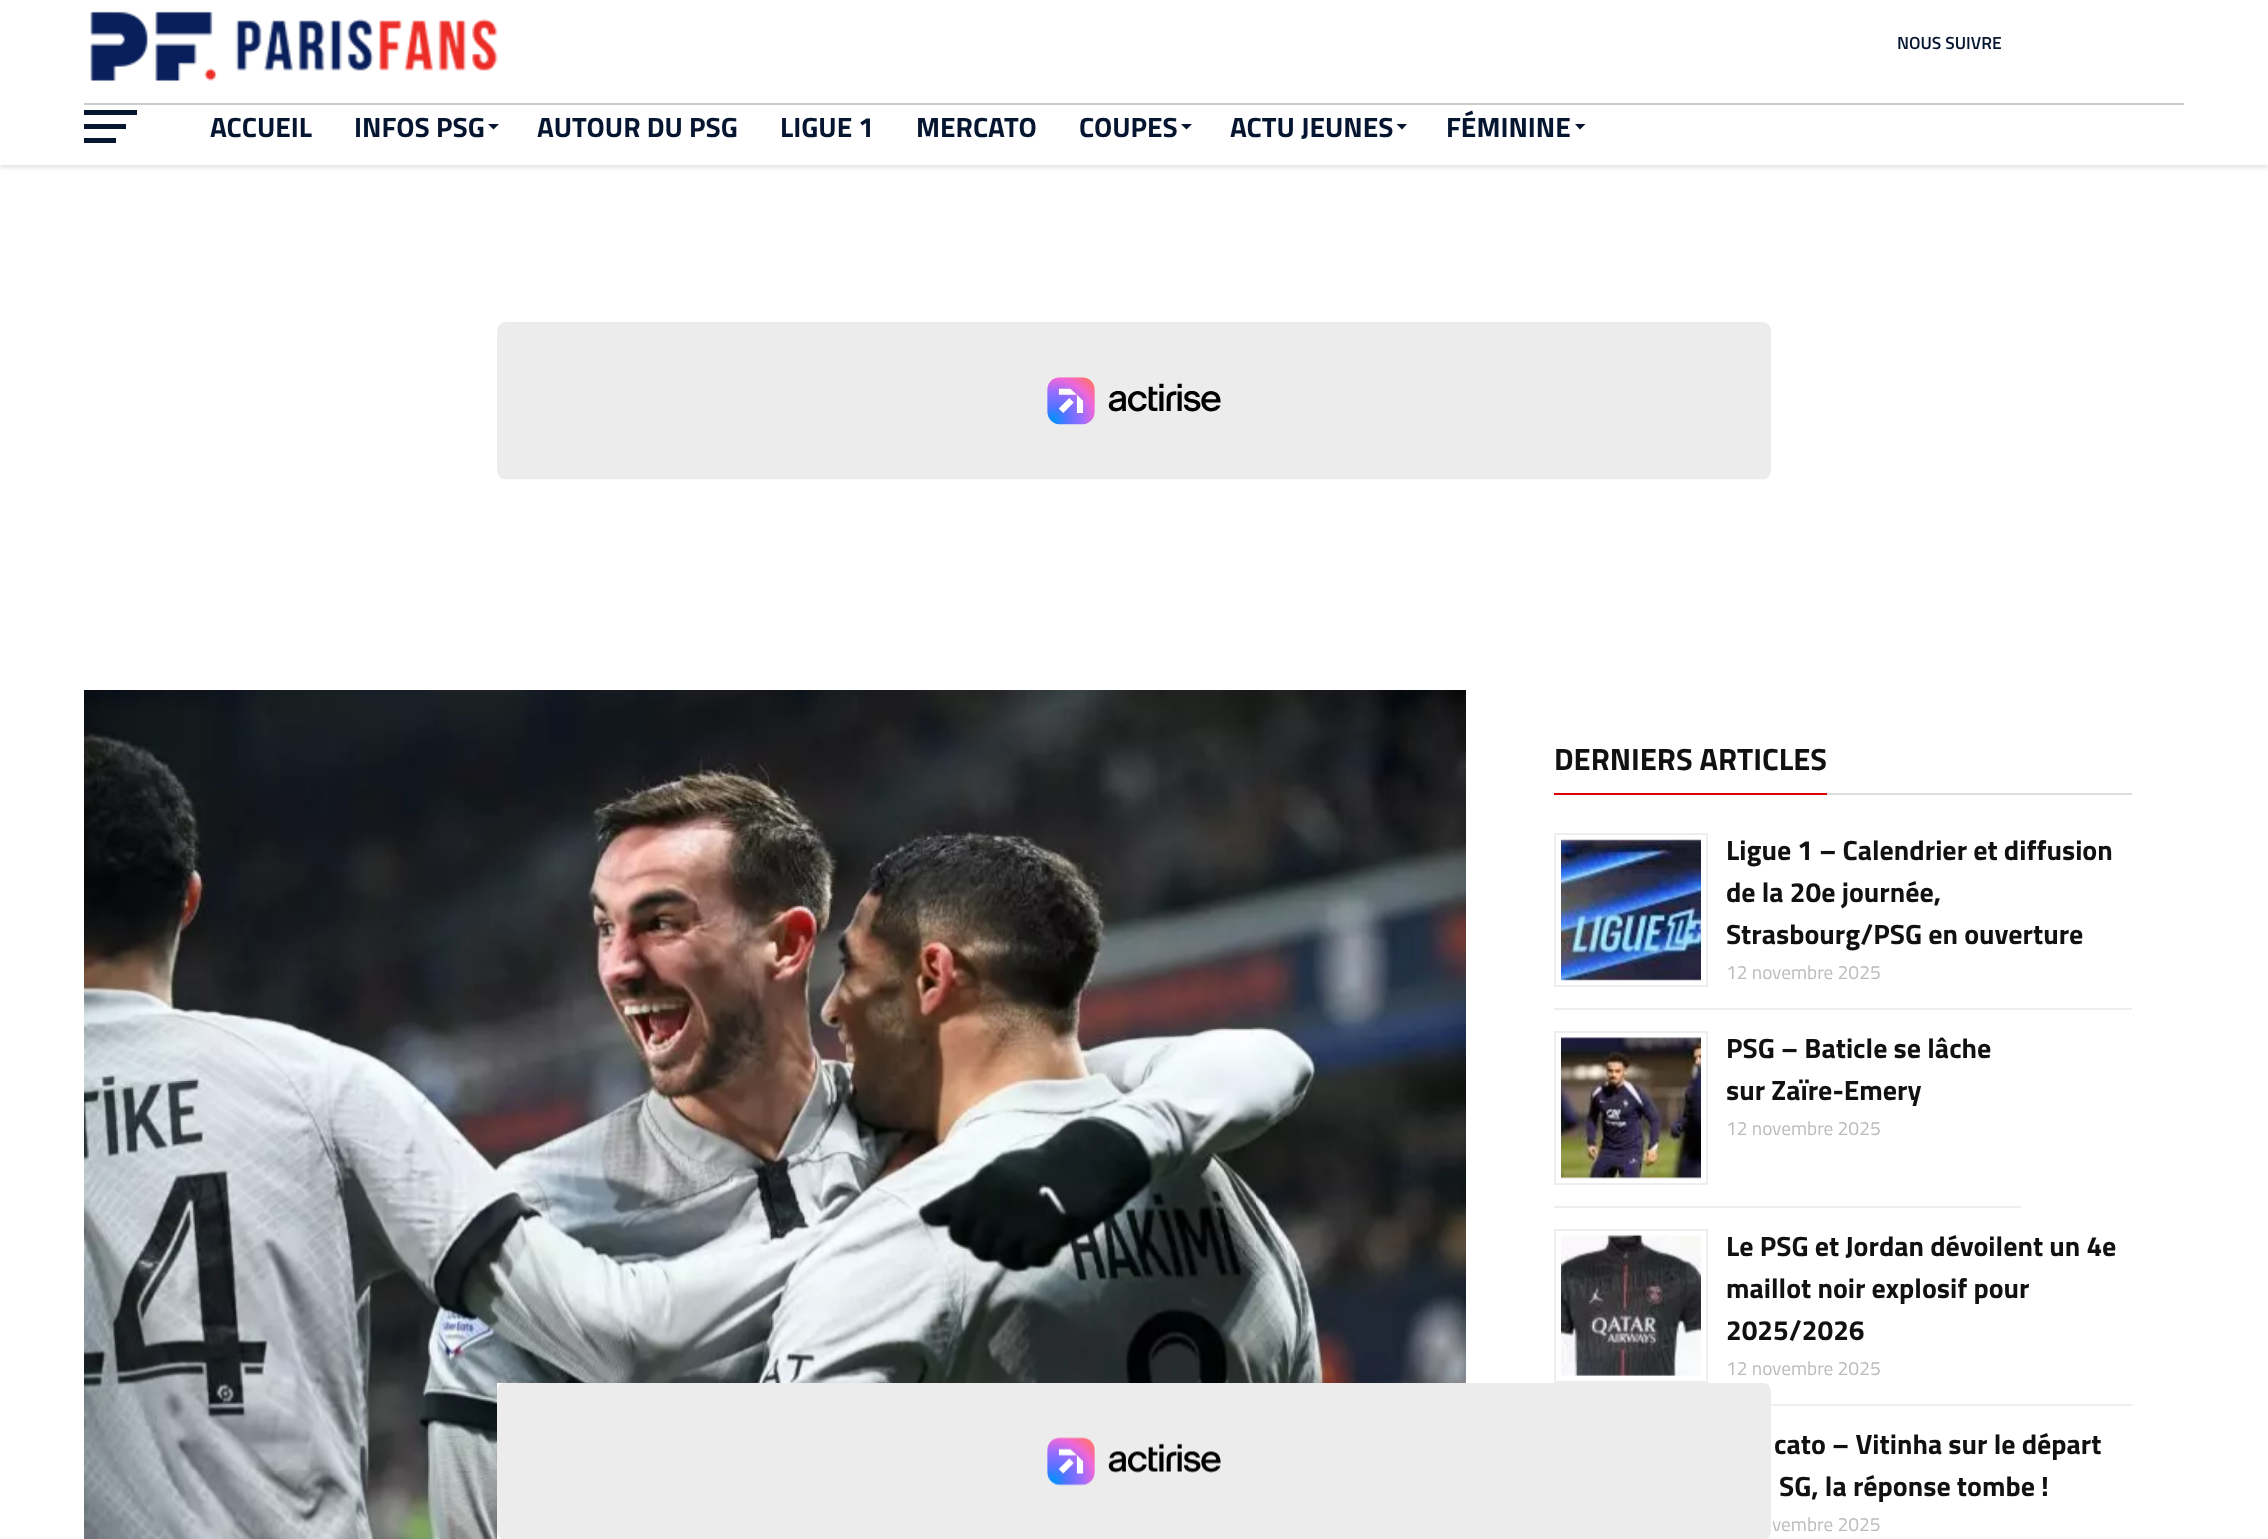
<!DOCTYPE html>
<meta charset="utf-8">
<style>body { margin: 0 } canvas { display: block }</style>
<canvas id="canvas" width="2268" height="1539"></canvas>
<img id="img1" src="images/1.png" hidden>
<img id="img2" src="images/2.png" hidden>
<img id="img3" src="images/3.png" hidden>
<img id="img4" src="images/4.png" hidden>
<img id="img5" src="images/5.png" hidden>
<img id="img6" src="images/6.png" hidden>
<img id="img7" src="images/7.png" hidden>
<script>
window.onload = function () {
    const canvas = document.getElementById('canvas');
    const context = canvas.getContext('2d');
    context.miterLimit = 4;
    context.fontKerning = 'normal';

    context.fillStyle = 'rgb(255, 255, 255)';
    context.fillRect(0, 0, 2268, 1539);
    context.fillStyle = 'rgba(0, 0, 0, 0.1)';
    context.filter = 'blur(2px)';
    context.beginPath();
    context.rect(0, 4, 2268, 164);
    context.fill();
    context.filter = 'none';
    context.fillStyle = 'rgb(255, 255, 255)';
    context.fillRect(0, 1, 2268, 164);
    context.fillStyle = 'rgb(204, 204, 204)';
    context.fillRect(84, 103, 2100, 2);
    context.drawImage(document.getElementById('img1'), 90, 11, 408, 70);
    context.fillStyle = 'rgb(6, 22, 49)';
    context.fillRect(84, 110, 53, 5);
    context.fillRect(84, 124, 42, 5);
    context.fillRect(84, 138, 32, 5);
    context.beginPath();
    context.moveTo(488, 124);
    context.lineTo(499, 124);
    context.lineTo(493.5, 129.5);
    context.closePath();
    context.fill();
    context.beginPath();
    context.moveTo(1181, 124);
    context.lineTo(1192, 124);
    context.lineTo(1186.5, 129.5);
    context.closePath();
    context.fill();
    context.beginPath();
    context.moveTo(1396.5, 124);
    context.lineTo(1407, 124);
    context.lineTo(1402, 129.5);
    context.closePath();
    context.fill();
    context.beginPath();
    context.moveTo(1575, 124);
    context.lineTo(1585.5, 124);
    context.lineTo(1580, 129.5);
    context.closePath();
    context.fill();
    context.drawImage(document.getElementById('img2'), 497, 322, 1274, 158);
    context.drawImage(document.getElementById('img3'), 84, 690, 1382, 849);
    context.fillStyle = 'rgb(221, 221, 221)';
    context.fillRect(1827, 793, 305, 2);
    context.fillStyle = 'rgb(224, 0, 0)';
    context.fillRect(1554, 793, 273, 2);
    context.fillStyle = 'rgb(238, 238, 238)';
    context.fillRect(1554, 1008, 578, 2);
    context.strokeStyle = 'rgb(238, 238, 238)';
    context.lineWidth = 2;
    context.strokeRect(1555, 834, 152, 152);
    context.drawImage(document.getElementById('img4'), 1561, 839, 140, 142);
    context.fillRect(1554, 1206, 467, 2);
    context.strokeRect(1555, 1032, 152, 152);
    context.drawImage(document.getElementById('img5'), 1561, 1037, 140, 142);
    context.fillRect(1771, 1404, 361, 2);
    context.strokeRect(1555, 1230, 152, 152);
    context.drawImage(document.getElementById('img6'), 1561, 1234, 140, 142);
    context.fillStyle = 'rgb(255, 255, 255)';
    context.fillRect(497, 1383, 969, 156);
    context.drawImage(document.getElementById('img7'), 497, 1383, 1274, 156);
    context.font = '600 17.5px Titillium Web';
    context.fillStyle = 'rgb(6, 22, 49)';
    context.fillText('NOUS SUIVRE', 1897, 49);
    context.font = 'bold 28px Titillium Web';
    context.fillText('ACCUEIL', 210, 137);
    context.fillText('INFOS PSG', 354, 137);
    context.fillText('AUTOUR DU PSG', 537, 137);
    context.fillText('LIGUE 1', 780, 137);
    context.fillText('MERCATO', 916, 137);
    context.fillText('COUPES', 1079, 137);
    context.fillText('ACTU JEUNES', 1230, 137);
    context.fillText('FÉMININE', 1446, 137);
    context.font = 'bold 30.75px Titillium Web';
    context.fillStyle = 'rgb(17, 17, 17)';
    context.fillText('DERNIERS ARTICLES', 1554, 770);
    context.font = 'bold 28px Titillium Web';
    context.fillText('Ligue 1 – Calendrier et diffusion', 1726, 860);
    context.fillText('de la 20e journée,', 1726, 902);
    context.fillText('Strasbourg/PSG en ouverture', 1726, 944);
    context.font = '19.25px Titillium Web';
    context.fillStyle = 'rgb(187, 187, 187)';
    context.fillText('12 novembre 2025', 1726, 979);
    context.font = 'bold 28px Titillium Web';
    context.fillStyle = 'rgb(17, 17, 17)';
    context.fillText('PSG – Baticle se lâche', 1726, 1058);
    context.fillText('sur Zaïre-Emery', 1726, 1100);
    context.font = '19.25px Titillium Web';
    context.fillStyle = 'rgb(187, 187, 187)';
    context.fillText('12 novembre 2025', 1726, 1135);
    context.font = 'bold 28px Titillium Web';
    context.fillStyle = 'rgb(17, 17, 17)';
    context.fillText('Le PSG et Jordan dévoilent un 4e', 1726, 1256);
    context.fillText('maillot noir explosif pour', 1726, 1298);
    context.fillText('2025/2026', 1726, 1340);
    context.font = '19.25px Titillium Web';
    context.fillStyle = 'rgb(187, 187, 187)';
    context.fillText('12 novembre 2025', 1726, 1375);
    context.font = 'bold 28px Titillium Web';
    context.fillStyle = 'rgb(17, 17, 17)';
    context.fillText('cato – Vitinha sur le départ', 1774, 1454);
    context.fillText('SG, la réponse tombe !', 1779, 1496);
    context.font = '19.25px Titillium Web';
    context.fillStyle = 'rgb(187, 187, 187)';
    context.fillText('vembre 2025', 1772, 1531);
};
</script>
